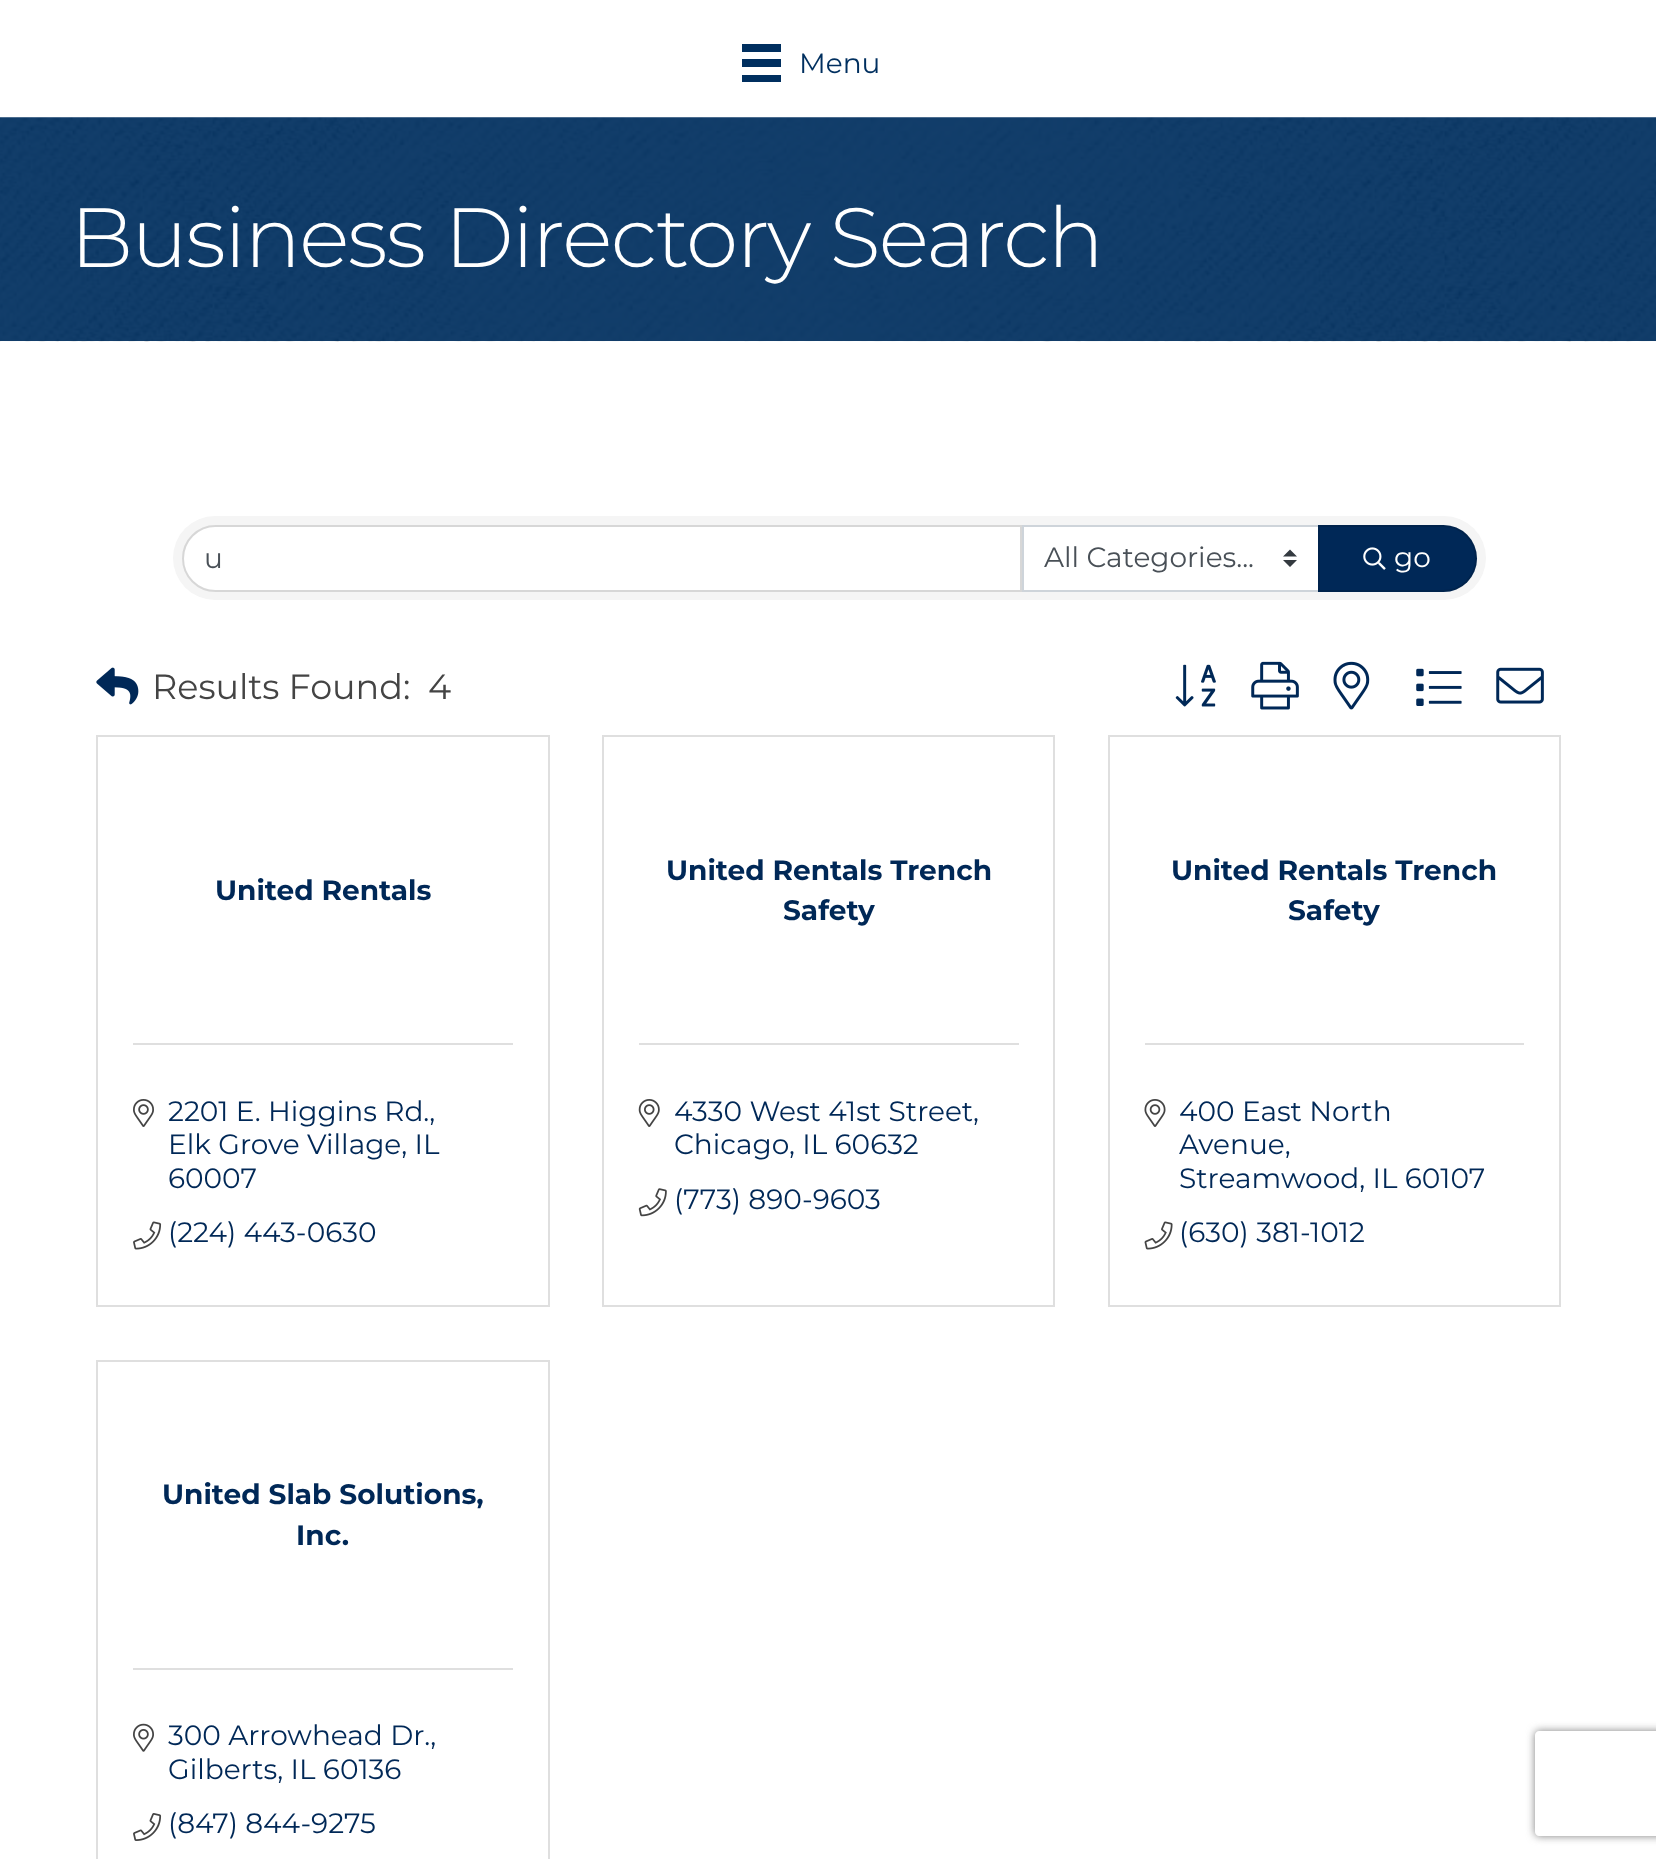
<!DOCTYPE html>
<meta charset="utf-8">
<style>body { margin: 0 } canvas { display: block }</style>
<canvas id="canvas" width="1656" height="1859"></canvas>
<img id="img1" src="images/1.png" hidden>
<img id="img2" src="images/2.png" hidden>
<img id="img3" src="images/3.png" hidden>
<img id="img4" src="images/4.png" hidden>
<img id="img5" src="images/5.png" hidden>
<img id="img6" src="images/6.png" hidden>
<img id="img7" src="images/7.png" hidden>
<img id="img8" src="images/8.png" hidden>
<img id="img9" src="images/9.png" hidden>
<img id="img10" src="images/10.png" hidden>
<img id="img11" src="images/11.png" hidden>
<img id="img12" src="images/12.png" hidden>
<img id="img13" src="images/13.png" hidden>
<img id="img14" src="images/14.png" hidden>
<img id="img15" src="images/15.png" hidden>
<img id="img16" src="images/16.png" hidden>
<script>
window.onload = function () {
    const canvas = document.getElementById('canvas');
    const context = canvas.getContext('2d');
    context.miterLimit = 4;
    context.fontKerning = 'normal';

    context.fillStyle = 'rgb(255, 255, 255)';
    context.fillRect(0, 0, 1656, 1859);
    context.fillStyle = 'rgb(0, 47, 95)';
    context.fillRect(742, 44, 39, 8);
    context.fillRect(742, 59, 39, 8);
    context.fillRect(742, 75, 39, 7);
    context.drawImage(document.getElementById('img1'), 0, 117, 1656, 225);
    context.fillStyle = 'rgb(245, 245, 245)';
    context.beginPath();
    context.roundRect(173, 516, 1313, 84, 42);
    context.fill();
    context.fillStyle = 'rgb(255, 255, 255)';
    context.beginPath();
    context.roundRect(184, 527, 836, 63, [31.5, 0, 0, 31.5]);
    context.fill();
    context.beginPath();
    context.roundRect(183, 526, 838, 65, [32.5, 0, 0, 32.5]);
    context.strokeStyle = 'rgba(0, 0, 0, 0.12)';
    context.lineWidth = 2;
    context.stroke();
    context.fillRect(1024, 527, 294, 63);
    context.fillStyle = 'rgb(52, 58, 64)';
    context.beginPath();
    context.moveTo(1290, 549.5);
    context.lineTo(1283, 556.5);
    context.lineTo(1297, 556.5);
    context.closePath();
    context.moveTo(1290, 567);
    context.lineTo(1283, 560);
    context.lineTo(1297, 560);
    context.closePath();
    context.fill();
    context.strokeStyle = 'rgb(206, 212, 218)';
    context.strokeRect(1023, 526, 296, 65);
    context.fillStyle = 'rgb(0, 40, 87)';
    context.beginPath();
    context.roundRect(1318, 525, 159, 67, [0, 33.5, 33.5, 0]);
    context.fill();
    context.beginPath();
    context.roundRect(1319, 526, 157, 65, [0, 32.5, 32.5, 0]);
    context.strokeStyle = 'rgba(0, 0, 0, 0.12)';
    context.stroke();
    context.drawImage(document.getElementById('img2'), 1363, 547, 23, 23);
    context.drawImage(document.getElementById('img3'), 96, 667, 43, 38);
    context.drawImage(document.getElementById('img4'), 1175, 664, 41, 43);
    context.drawImage(document.getElementById('img5'), 1251, 661, 48, 49);
    context.drawImage(document.getElementById('img6'), 1333, 661, 37, 49);
    context.drawImage(document.getElementById('img7'), 1416, 668, 46, 38);
    context.drawImage(document.getElementById('img8'), 1496, 667, 48, 37);
    context.strokeStyle = 'rgb(223, 223, 223)';
    context.strokeRect(97, 736, 452, 570);
    context.fillStyle = 'rgb(223, 223, 223)';
    context.fillRect(133, 1043, 380, 2);
    context.drawImage(document.getElementById('img9'), 133, 1099, 21, 28);
    context.drawImage(document.getElementById('img10'), 133, 1221, 29, 29);
    context.strokeRect(603, 736, 451, 570);
    context.fillRect(639, 1043, 380, 2);
    context.drawImage(document.getElementById('img11'), 638, 1099, 22, 28);
    context.drawImage(document.getElementById('img12'), 638, 1188, 29, 29);
    context.strokeRect(1109, 736, 451, 570);
    context.fillRect(1145, 1043, 379, 2);
    context.drawImage(document.getElementById('img13'), 1144, 1099, 22, 28);
    context.drawImage(document.getElementById('img14'), 1144, 1221, 29, 29);
    context.strokeRect(97, 1361, 452, 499);
    context.fillRect(133, 1668, 380, 2);
    context.drawImage(document.getElementById('img15'), 133, 1723, 21, 29);
    context.drawImage(document.getElementById('img16'), 133, 1813, 29, 28);
    context.save();
    context.beginPath();
    context.moveTo(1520, 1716);
    context.lineTo(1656, 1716);
    context.lineTo(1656, 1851);
    context.lineTo(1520, 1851);
    context.closePath();
    context.moveTo(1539, 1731);
    context.lineTo(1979, 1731);
    context.bezierCurveTo(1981, 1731, 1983, 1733, 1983, 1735);
    context.lineTo(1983, 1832);
    context.bezierCurveTo(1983, 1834, 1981, 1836, 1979, 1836);
    context.lineTo(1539, 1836);
    context.bezierCurveTo(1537, 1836, 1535, 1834, 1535, 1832);
    context.lineTo(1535, 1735);
    context.bezierCurveTo(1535, 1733, 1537, 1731, 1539, 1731);
    context.closePath();
    context.clip('evenodd');
    context.fillStyle = 'rgb(128, 128, 128)';
    context.filter = 'blur(4.5px)';
    context.beginPath();
    context.roundRect(1535, 1731, 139, 105, 4);
    context.fill();
    context.filter = 'none';
    context.restore();
    context.font = '28px Montserrat';
    context.fillStyle = 'rgb(0, 47, 95)';
    context.fillText('Menu', 799, 73);
    context.letterSpacing = '-1.75px';
    context.font = '300 84px Montserrat';
    context.fillStyle = 'rgb(255, 255, 255)';
    context.fillText('Business Directory Search', 70, 267);
    context.letterSpacing = '0px';
    context.font = '28px Montserrat';
    context.fillStyle = 'rgb(73, 80, 87)';
    context.fillText('u', 204, 568);
    context.fillText('All Categories...', 1044, 567);
    context.fillStyle = 'rgb(255, 255, 255)';
    context.fillText('go', 1394, 567);
    context.font = '35px Montserrat';
    context.fillStyle = 'rgb(68, 68, 68)';
    context.fillText('Results Found:', 152, 699);
    context.fillText('4', 428, 699);
    context.font = 'bold 28px Montserrat';
    context.fillStyle = 'rgb(0, 40, 87)';
    context.fillText('United Rentals', 215, 900);
    context.font = '28px Montserrat';
    context.fillText('2201 E. Higgins Rd.,', 168, 1121);
    context.fillText('Elk Grove Village, IL', 168, 1154);
    context.fillText('60007', 168, 1188);
    context.fillText('(224) 443-0630', 168, 1242);
    context.font = 'bold 28px Montserrat';
    context.fillText('United Rentals Trench', 666, 880);
    context.fillText('Safety', 783, 920);
    context.font = '28px Montserrat';
    context.fillText('4330 West 41st Street', 674, 1121);
    context.fillText(',', 973, 1121);
    context.fillText('Chicago', 674, 1154);
    context.fillText(', IL 60632', 789, 1154);
    context.fillText('(773) 890-9603', 674, 1209);
    context.font = 'bold 28px Montserrat';
    context.fillText('United Rentals Trench', 1171, 880);
    context.fillText('Safety', 1288, 920);
    context.font = '28px Montserrat';
    context.fillText('400 East North', 1179, 1121);
    context.fillText('Avenue,', 1179, 1154);
    context.fillText('Streamwood, IL 60107', 1179, 1188);
    context.fillText('(630) 381-1012', 1179, 1242);
    context.font = 'bold 28px Montserrat';
    context.fillText('United Slab Solutions,', 162, 1504);
    context.fillText('Inc.', 296, 1545);
    context.font = '28px Montserrat';
    context.fillText('300 Arrowhead Dr.,', 168, 1745);
    context.fillText('Gilberts, IL 60136', 168, 1779);
    context.fillText('(847) 844-9275', 168, 1833);
};
</script>
